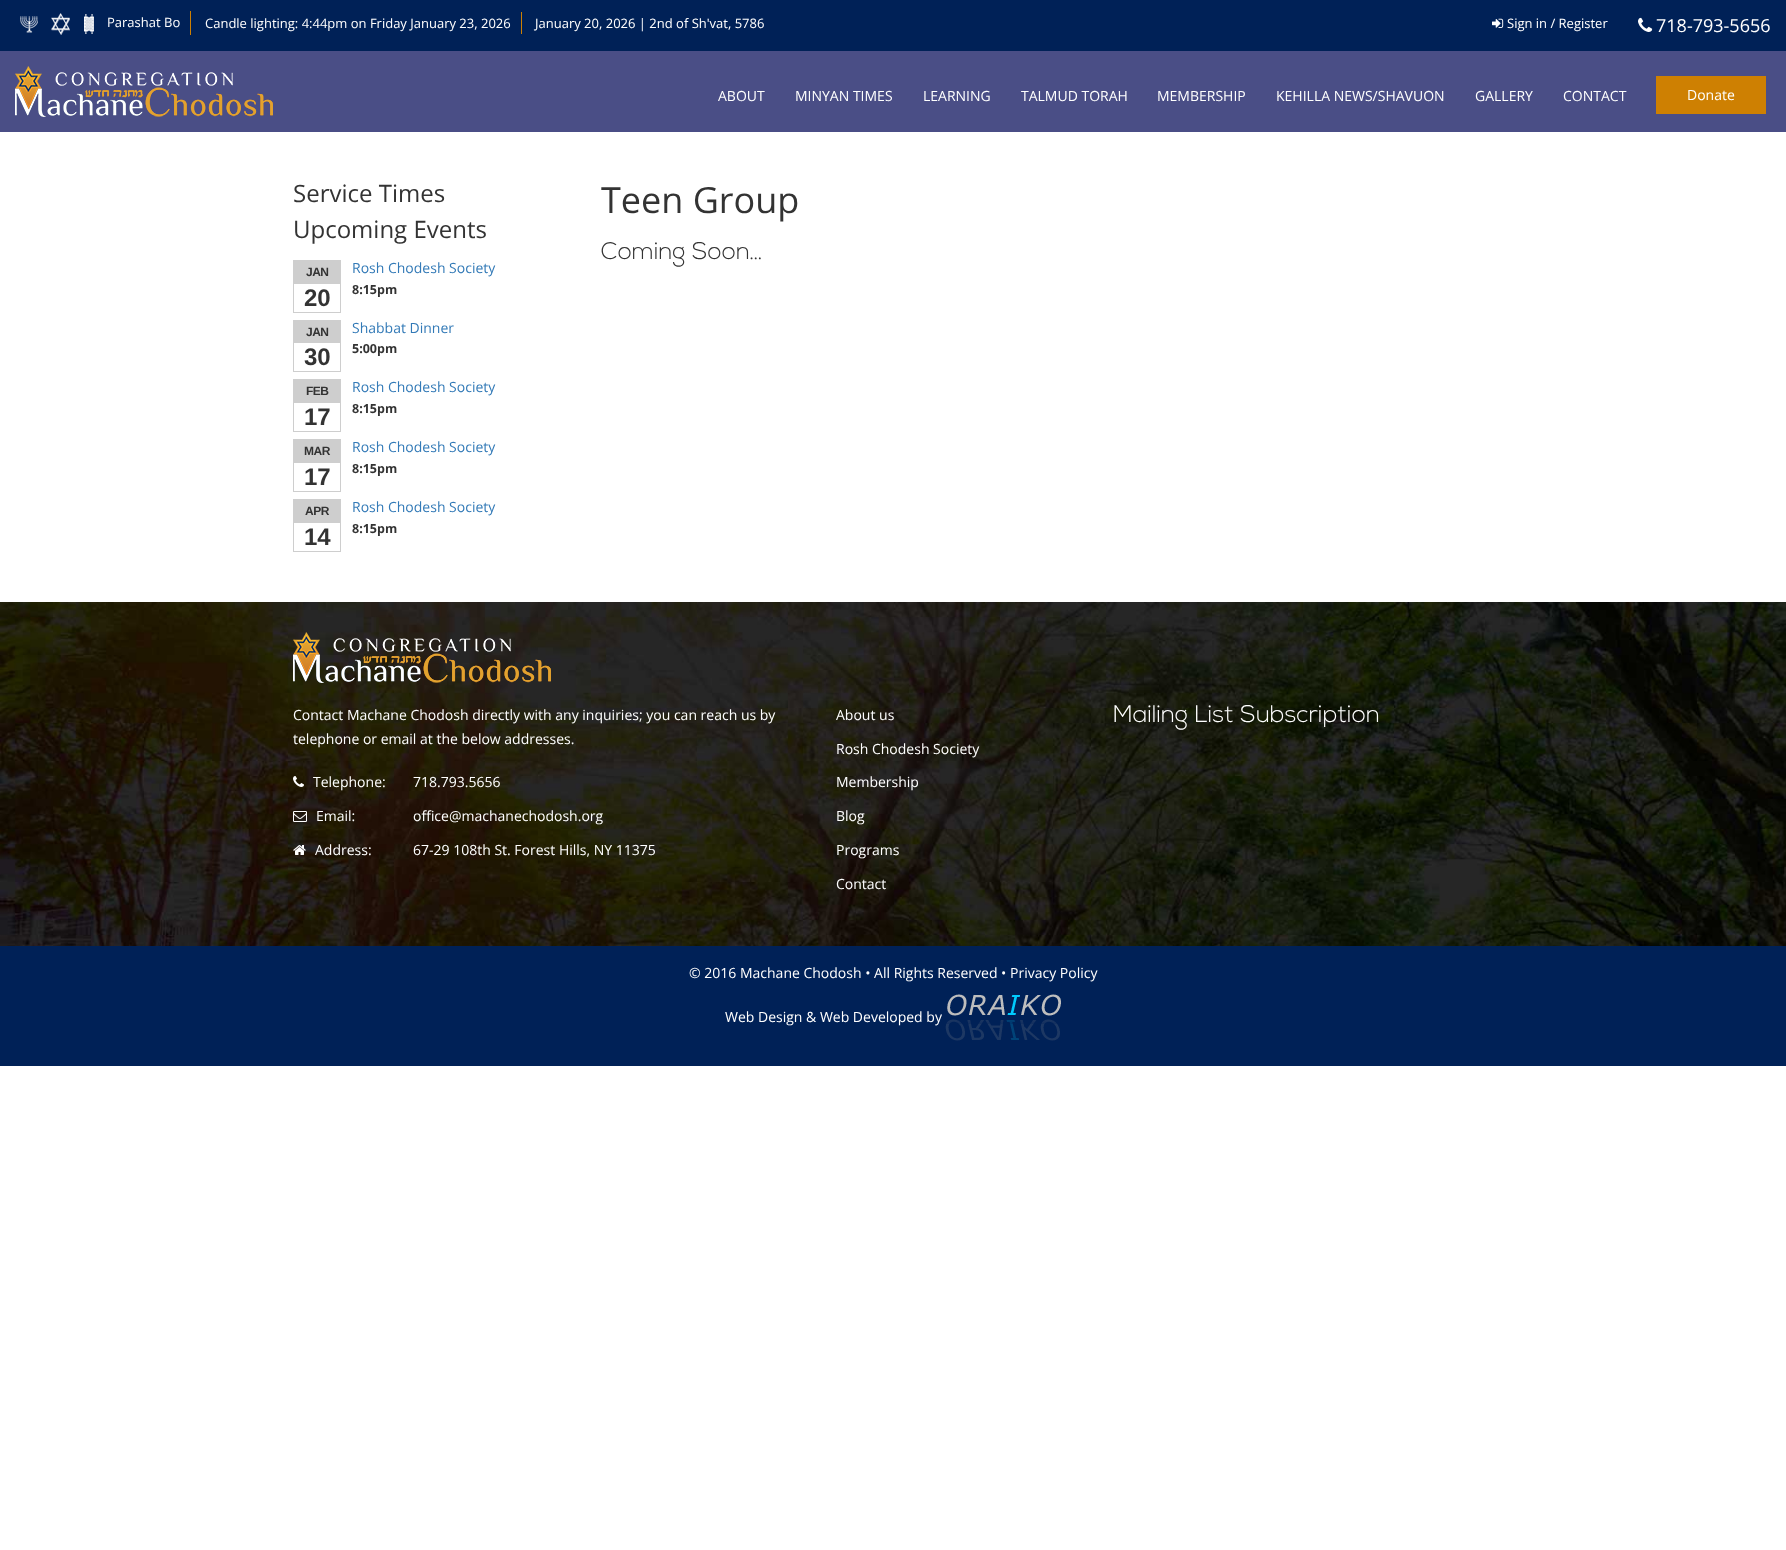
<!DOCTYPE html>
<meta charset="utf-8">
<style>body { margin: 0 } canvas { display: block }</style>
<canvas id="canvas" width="1786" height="1550"></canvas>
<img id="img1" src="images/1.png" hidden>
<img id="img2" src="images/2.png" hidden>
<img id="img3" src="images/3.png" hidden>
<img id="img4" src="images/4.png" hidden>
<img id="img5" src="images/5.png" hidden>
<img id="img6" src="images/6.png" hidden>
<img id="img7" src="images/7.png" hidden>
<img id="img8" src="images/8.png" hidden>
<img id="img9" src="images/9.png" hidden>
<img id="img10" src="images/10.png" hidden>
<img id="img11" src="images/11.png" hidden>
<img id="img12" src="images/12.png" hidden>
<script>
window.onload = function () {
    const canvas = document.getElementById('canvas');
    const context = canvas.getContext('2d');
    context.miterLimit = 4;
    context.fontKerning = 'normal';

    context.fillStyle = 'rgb(255, 255, 255)';
    context.fillRect(0, 0, 1786, 1550);
    context.fillStyle = 'rgb(74, 78, 134)';
    context.fillRect(0, 51, 1786, 81);
    context.fillStyle = 'rgb(0, 33, 87)';
    context.fillRect(0, 0, 1786, 51);
    context.fillStyle = 'rgb(206, 128, 2)';
    context.fillRect(190, 11, 1, 24);
    context.drawImage(document.getElementById('img1'), 20, 16, 18, 17);
    context.drawImage(document.getElementById('img2'), 51, 13, 19, 22);
    context.drawImage(document.getElementById('img3'), 84, 14, 10, 20);
    context.fillRect(521, 12, 1, 22);
    context.drawImage(document.getElementById('img4'), 1492, 18, 12, 10);
    context.drawImage(document.getElementById('img5'), 1638, 17, 15, 15);
    context.drawImage(document.getElementById('img6'), 15, 66, 258, 51);
    context.fillRect(1656, 76, 110, 38);
    context.strokeStyle = 'rgb(206, 206, 206)';
    context.strokeRect(293.5, 260.5, 47, 52);
    context.fillStyle = 'rgb(206, 206, 206)';
    context.fillRect(294, 261, 46, 23);
    context.strokeRect(293.5, 320.5, 47, 51);
    context.fillRect(294, 321, 46, 22);
    context.strokeRect(293.5, 379.5, 47, 52);
    context.fillRect(294, 380, 46, 23);
    context.strokeRect(293.5, 439.5, 47, 52);
    context.fillRect(294, 440, 46, 23);
    context.strokeRect(293.5, 499.5, 47, 52);
    context.fillRect(294, 500, 46, 23);
    context.drawImage(document.getElementById('img7'), 0, 602, 1786, 344);
    context.drawImage(document.getElementById('img8'), 293, 632, 258, 51);
    context.drawImage(document.getElementById('img9'), 293, 776, 11, 11);
    context.drawImage(document.getElementById('img10'), 293, 811, 14, 11);
    context.drawImage(document.getElementById('img11'), 293, 845, 13, 10);
    context.fillStyle = 'rgb(0, 33, 87)';
    context.fillRect(0, 946, 1786, 120);
    context.drawImage(document.getElementById('img12'), 945, 994, 116, 47);
    context.font = '13px Open Sans';
    context.fillStyle = 'rgb(255, 255, 255)';
    context.fillText('Parashat Bo', 107, 27);
    context.fillText('Candle lighting: 4:44pm on Friday January 23, 2026', 205, 28);
    context.fillText('January 20, 2026 | 2nd of Sh\'vat, 5786', 535, 28);
    context.fillText('Sign in / Register', 1507, 28);
    context.font = '18px Open Sans';
    context.fillText('718-793-5656', 1656, 32);
    context.font = '14px Open Sans';
    context.fillText('ABOUT', 718, 101);
    context.fillText('MINYAN TIMES', 795, 101);
    context.fillText('LEARNING', 923, 101);
    context.fillText('TALMUD TORAH', 1021, 101);
    context.fillText('MEMBERSHIP', 1157, 101);
    context.fillText('KEHILLA NEWS/SHAVUON', 1276, 101);
    context.fillText('GALLERY', 1475, 101);
    context.fillText('CONTACT', 1563, 101);
    context.fillText('Donate', 1687, 100);
    context.font = '24px Open Sans';
    context.fillStyle = 'rgb(51, 51, 51)';
    context.fillText('Service Times', 293, 202);
    context.fillText('Upcoming Events', 293, 238);
    context.letterSpacing = '-0.5px';
    context.font = 'bold 12px Liberation Sans';
    context.fillText('JAN', 306, 276);
    context.letterSpacing = '0px';
    context.font = 'bold 24px Liberation Sans';
    context.fillText('20', 304, 306);
    context.font = '14px Open Sans';
    context.fillStyle = 'rgb(51, 122, 183)';
    context.fillText('Rosh Chodesh Society', 352, 273);
    context.font = 'bold 12.5px Open Sans';
    context.fillStyle = 'rgb(51, 51, 51)';
    context.fillText('8:15pm', 352, 294);
    context.letterSpacing = '-0.5px';
    context.font = 'bold 12px Liberation Sans';
    context.fillText('JAN', 306, 336);
    context.letterSpacing = '0px';
    context.font = 'bold 24px Liberation Sans';
    context.fillText('30', 304, 365);
    context.font = '14px Open Sans';
    context.fillStyle = 'rgb(51, 122, 183)';
    context.fillText('Shabbat Dinner', 352, 333);
    context.font = 'bold 12.5px Open Sans';
    context.fillStyle = 'rgb(51, 51, 51)';
    context.fillText('5:00pm', 352, 353);
    context.letterSpacing = '-0.5px';
    context.font = 'bold 12px Liberation Sans';
    context.fillText('FEB', 306, 395);
    context.letterSpacing = '0px';
    context.font = 'bold 24px Liberation Sans';
    context.fillText('17', 304, 425);
    context.font = '14px Open Sans';
    context.fillStyle = 'rgb(51, 122, 183)';
    context.fillText('Rosh Chodesh Society', 352, 392);
    context.font = 'bold 12.5px Open Sans';
    context.fillStyle = 'rgb(51, 51, 51)';
    context.fillText('8:15pm', 352, 413);
    context.letterSpacing = '-0.5px';
    context.font = 'bold 12px Liberation Sans';
    context.fillText('MAR', 304, 455);
    context.letterSpacing = '0px';
    context.font = 'bold 24px Liberation Sans';
    context.fillText('17', 304, 485);
    context.font = '14px Open Sans';
    context.fillStyle = 'rgb(51, 122, 183)';
    context.fillText('Rosh Chodesh Society', 352, 452);
    context.font = 'bold 12.5px Open Sans';
    context.fillStyle = 'rgb(51, 51, 51)';
    context.fillText('8:15pm', 352, 473);
    context.letterSpacing = '-0.5px';
    context.font = 'bold 12px Liberation Sans';
    context.fillText('APR', 305, 515);
    context.letterSpacing = '0px';
    context.font = 'bold 24px Liberation Sans';
    context.fillText('14', 304, 545);
    context.font = '14px Open Sans';
    context.fillStyle = 'rgb(51, 122, 183)';
    context.fillText('Rosh Chodesh Society', 352, 512);
    context.font = 'bold 12.5px Open Sans';
    context.fillStyle = 'rgb(51, 51, 51)';
    context.fillText('8:15pm', 352, 533);
    context.font = '36px Open Sans';
    context.fillText('Teen Group', 601, 213);
    context.font = '300 24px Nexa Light';
    context.fillText('Coming Soon…', 601, 259);
    context.font = '14px Open Sans';
    context.fillStyle = 'rgb(255, 255, 255)';
    context.fillText('Contact Machane Chodosh directly with any inquiries; you can reach us by', 293, 720);
    context.fillText('telephone or email at the below addresses.', 293, 744);
    context.fillText('Telephone:', 313, 787);
    context.fillText('718.793.5656', 413, 787);
    context.fillText('Email:', 316, 821);
    context.fillText('office@machanechodosh.org', 413, 821);
    context.fillText('Address:', 315, 855);
    context.fillText('67-29 108th St. Forest Hills, NY 11375', 413, 855);
    context.fillText('About us', 836, 720);
    context.fillText('Rosh Chodesh Society', 836, 754);
    context.fillText('Membership', 836, 787);
    context.fillText('Blog', 836, 821);
    context.fillText('Programs', 836, 855);
    context.fillText('Contact', 836, 889);
    context.font = '300 24px Nexa Light';
    context.fillText('Mailing List Subscription', 1113, 722);
    context.font = '14px Open Sans';
    context.fillText('© 2016 Machane Chodosh • All Rights Reserved • Privacy Policy', 689, 978);
    context.fillText('Web Design & Web Developed by', 725, 1022);
};
</script>
